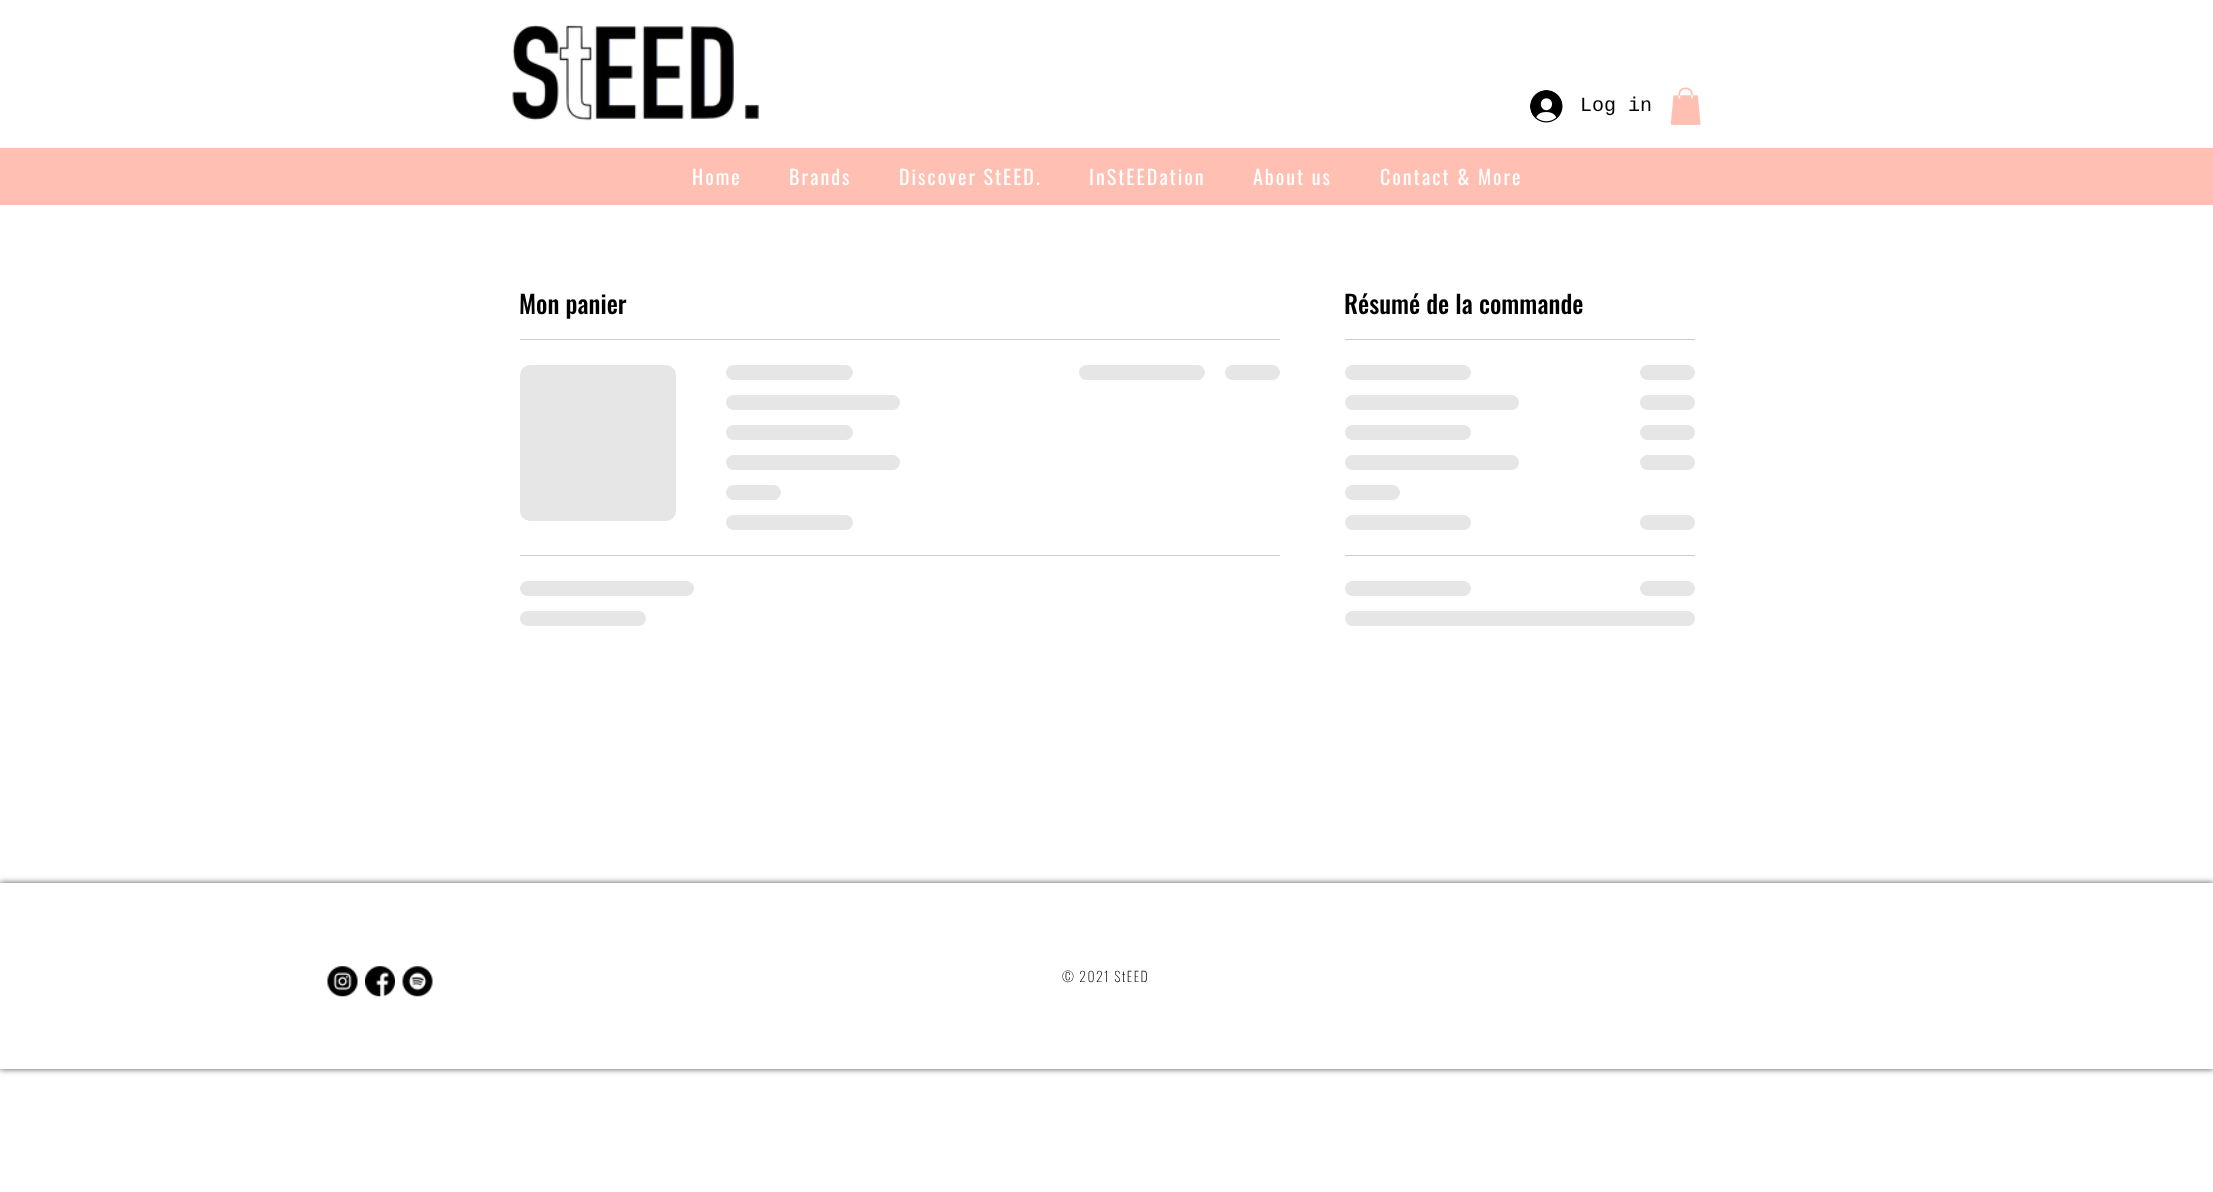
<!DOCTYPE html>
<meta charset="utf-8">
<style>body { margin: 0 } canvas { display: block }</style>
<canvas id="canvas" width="2213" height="1192"></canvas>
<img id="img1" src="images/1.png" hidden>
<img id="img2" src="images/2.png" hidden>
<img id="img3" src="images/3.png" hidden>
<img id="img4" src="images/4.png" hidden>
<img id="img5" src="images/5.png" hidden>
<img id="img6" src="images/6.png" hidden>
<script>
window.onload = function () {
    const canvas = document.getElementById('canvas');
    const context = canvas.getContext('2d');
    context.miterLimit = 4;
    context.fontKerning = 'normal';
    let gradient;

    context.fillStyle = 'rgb(255, 255, 255)';
    context.fillRect(0, 0, 2213, 1192);
    context.drawImage(document.getElementById('img1'), 512, 25, 247, 96);
    context.drawImage(document.getElementById('img2'), 1530, 90, 33, 33);
    context.drawImage(document.getElementById('img3'), 1670, 87, 31, 38);
    context.fillStyle = 'rgb(255, 191, 179)';
    context.fillRect(0, 148, 2213, 57);
    context.fillStyle = 'rgb(204, 204, 204)';
    context.fillRect(520, 339, 760, 1);
    gradient = context.createLinearGradient(520, 443, 1145, 443);
    gradient.addColorStop(0.25, 'rgb(230, 230, 230)');
    gradient.addColorStop(0.37, 'rgb(204, 204, 204)');
    gradient.addColorStop(0.63, 'rgb(230, 230, 230)');
    context.fillStyle = gradient;
    context.beginPath();
    context.roundRect(520, 365, 156, 156, 10);
    context.fill();
    gradient = context.createLinearGradient(726, 373, 1231, 373);
    gradient.addColorStop(0.25, 'rgb(230, 230, 230)');
    gradient.addColorStop(0.37, 'rgb(204, 204, 204)');
    gradient.addColorStop(0.63, 'rgb(230, 230, 230)');
    context.fillStyle = gradient;
    context.beginPath();
    context.roundRect(726, 365, 127, 15, 7.5);
    context.fill();
    gradient = context.createLinearGradient(726, 403, 1421, 403);
    gradient.addColorStop(0.25, 'rgb(230, 230, 230)');
    gradient.addColorStop(0.37, 'rgb(204, 204, 204)');
    gradient.addColorStop(0.63, 'rgb(230, 230, 230)');
    context.fillStyle = gradient;
    context.beginPath();
    context.roundRect(726, 395, 174, 15, 7.5);
    context.fill();
    gradient = context.createLinearGradient(726, 433, 1231, 433);
    gradient.addColorStop(0.25, 'rgb(230, 230, 230)');
    gradient.addColorStop(0.37, 'rgb(204, 204, 204)');
    gradient.addColorStop(0.63, 'rgb(230, 230, 230)');
    context.fillStyle = gradient;
    context.beginPath();
    context.roundRect(726, 425, 127, 15, 7.5);
    context.fill();
    gradient = context.createLinearGradient(726, 463, 1421, 463);
    gradient.addColorStop(0.25, 'rgb(230, 230, 230)');
    gradient.addColorStop(0.37, 'rgb(204, 204, 204)');
    gradient.addColorStop(0.63, 'rgb(230, 230, 230)');
    context.fillStyle = gradient;
    context.beginPath();
    context.roundRect(726, 455, 174, 15, 7.5);
    context.fill();
    gradient = context.createLinearGradient(726, 493, 946, 493);
    gradient.addColorStop(0.25, 'rgb(230, 230, 230)');
    gradient.addColorStop(0.37, 'rgb(204, 204, 204)');
    gradient.addColorStop(0.63, 'rgb(230, 230, 230)');
    context.fillStyle = gradient;
    context.beginPath();
    context.roundRect(726, 485, 55, 15, 7.5);
    context.fill();
    gradient = context.createLinearGradient(726, 523, 1231, 523);
    gradient.addColorStop(0.25, 'rgb(230, 230, 230)');
    gradient.addColorStop(0.37, 'rgb(204, 204, 204)');
    gradient.addColorStop(0.63, 'rgb(230, 230, 230)');
    context.fillStyle = gradient;
    context.beginPath();
    context.roundRect(726, 515, 127, 15, 7.5);
    context.fill();
    gradient = context.createLinearGradient(1079, 373, 1584, 373);
    gradient.addColorStop(0.25, 'rgb(230, 230, 230)');
    gradient.addColorStop(0.37, 'rgb(204, 204, 204)');
    gradient.addColorStop(0.63, 'rgb(230, 230, 230)');
    context.fillStyle = gradient;
    context.beginPath();
    context.roundRect(1079, 365, 126, 15, 7.5);
    context.fill();
    gradient = context.createLinearGradient(1225, 373, 1445, 373);
    gradient.addColorStop(0.25, 'rgb(230, 230, 230)');
    gradient.addColorStop(0.37, 'rgb(204, 204, 204)');
    gradient.addColorStop(0.63, 'rgb(230, 230, 230)');
    context.fillStyle = gradient;
    context.beginPath();
    context.roundRect(1225, 365, 55, 15, 7.5);
    context.fill();
    context.fillStyle = 'rgb(204, 204, 204)';
    context.fillRect(520, 555, 760, 1);
    gradient = context.createLinearGradient(520, 589, 1215, 589);
    gradient.addColorStop(0.25, 'rgb(230, 230, 230)');
    gradient.addColorStop(0.37, 'rgb(204, 204, 204)');
    gradient.addColorStop(0.63, 'rgb(230, 230, 230)');
    context.fillStyle = gradient;
    context.beginPath();
    context.roundRect(520, 581, 174, 15, 7.5);
    context.fill();
    gradient = context.createLinearGradient(520, 619, 1025, 619);
    gradient.addColorStop(0.25, 'rgb(230, 230, 230)');
    gradient.addColorStop(0.37, 'rgb(204, 204, 204)');
    gradient.addColorStop(0.63, 'rgb(230, 230, 230)');
    context.fillStyle = gradient;
    context.beginPath();
    context.roundRect(520, 611, 126, 15, 7.5);
    context.fill();
    context.fillStyle = 'rgb(204, 204, 204)';
    context.fillRect(1345, 339, 350, 1);
    gradient = context.createLinearGradient(1345, 373, 1850, 373);
    gradient.addColorStop(0.25, 'rgb(230, 230, 230)');
    gradient.addColorStop(0.37, 'rgb(204, 204, 204)');
    gradient.addColorStop(0.63, 'rgb(230, 230, 230)');
    context.fillStyle = gradient;
    context.beginPath();
    context.roundRect(1345, 365, 126, 15, 7.5);
    context.fill();
    gradient = context.createLinearGradient(1640, 373, 1860, 373);
    gradient.addColorStop(0.25, 'rgb(230, 230, 230)');
    gradient.addColorStop(0.37, 'rgb(204, 204, 204)');
    gradient.addColorStop(0.63, 'rgb(230, 230, 230)');
    context.fillStyle = gradient;
    context.beginPath();
    context.roundRect(1640, 365, 55, 15, 7.5);
    context.fill();
    gradient = context.createLinearGradient(1345, 403, 2040, 403);
    gradient.addColorStop(0.25, 'rgb(230, 230, 230)');
    gradient.addColorStop(0.37, 'rgb(204, 204, 204)');
    gradient.addColorStop(0.63, 'rgb(230, 230, 230)');
    context.fillStyle = gradient;
    context.beginPath();
    context.roundRect(1345, 395, 174, 15, 7.5);
    context.fill();
    gradient = context.createLinearGradient(1640, 403, 1860, 403);
    gradient.addColorStop(0.25, 'rgb(230, 230, 230)');
    gradient.addColorStop(0.37, 'rgb(204, 204, 204)');
    gradient.addColorStop(0.63, 'rgb(230, 230, 230)');
    context.fillStyle = gradient;
    context.beginPath();
    context.roundRect(1640, 395, 55, 15, 7.5);
    context.fill();
    gradient = context.createLinearGradient(1345, 433, 1850, 433);
    gradient.addColorStop(0.25, 'rgb(230, 230, 230)');
    gradient.addColorStop(0.37, 'rgb(204, 204, 204)');
    gradient.addColorStop(0.63, 'rgb(230, 230, 230)');
    context.fillStyle = gradient;
    context.beginPath();
    context.roundRect(1345, 425, 126, 15, 7.5);
    context.fill();
    gradient = context.createLinearGradient(1640, 433, 1860, 433);
    gradient.addColorStop(0.25, 'rgb(230, 230, 230)');
    gradient.addColorStop(0.37, 'rgb(204, 204, 204)');
    gradient.addColorStop(0.63, 'rgb(230, 230, 230)');
    context.fillStyle = gradient;
    context.beginPath();
    context.roundRect(1640, 425, 55, 15, 7.5);
    context.fill();
    gradient = context.createLinearGradient(1345, 463, 2040, 463);
    gradient.addColorStop(0.25, 'rgb(230, 230, 230)');
    gradient.addColorStop(0.37, 'rgb(204, 204, 204)');
    gradient.addColorStop(0.63, 'rgb(230, 230, 230)');
    context.fillStyle = gradient;
    context.beginPath();
    context.roundRect(1345, 455, 174, 15, 7.5);
    context.fill();
    gradient = context.createLinearGradient(1640, 463, 1860, 463);
    gradient.addColorStop(0.25, 'rgb(230, 230, 230)');
    gradient.addColorStop(0.37, 'rgb(204, 204, 204)');
    gradient.addColorStop(0.63, 'rgb(230, 230, 230)');
    context.fillStyle = gradient;
    context.beginPath();
    context.roundRect(1640, 455, 55, 15, 7.5);
    context.fill();
    gradient = context.createLinearGradient(1345, 493, 1565, 493);
    gradient.addColorStop(0.25, 'rgb(230, 230, 230)');
    gradient.addColorStop(0.37, 'rgb(204, 204, 204)');
    gradient.addColorStop(0.63, 'rgb(230, 230, 230)');
    context.fillStyle = gradient;
    context.beginPath();
    context.roundRect(1345, 485, 55, 15, 7.5);
    context.fill();
    gradient = context.createLinearGradient(1345, 523, 1850, 523);
    gradient.addColorStop(0.25, 'rgb(230, 230, 230)');
    gradient.addColorStop(0.37, 'rgb(204, 204, 204)');
    gradient.addColorStop(0.63, 'rgb(230, 230, 230)');
    context.fillStyle = gradient;
    context.beginPath();
    context.roundRect(1345, 515, 126, 15, 7.5);
    context.fill();
    gradient = context.createLinearGradient(1640, 523, 1860, 523);
    gradient.addColorStop(0.25, 'rgb(230, 230, 230)');
    gradient.addColorStop(0.37, 'rgb(204, 204, 204)');
    gradient.addColorStop(0.63, 'rgb(230, 230, 230)');
    context.fillStyle = gradient;
    context.beginPath();
    context.roundRect(1640, 515, 55, 15, 7.5);
    context.fill();
    context.fillStyle = 'rgb(204, 204, 204)';
    context.fillRect(1345, 555, 350, 1);
    gradient = context.createLinearGradient(1345, 589, 1850, 589);
    gradient.addColorStop(0.25, 'rgb(230, 230, 230)');
    gradient.addColorStop(0.37, 'rgb(204, 204, 204)');
    gradient.addColorStop(0.63, 'rgb(230, 230, 230)');
    context.fillStyle = gradient;
    context.beginPath();
    context.roundRect(1345, 581, 126, 15, 7.5);
    context.fill();
    gradient = context.createLinearGradient(1640, 589, 1860, 589);
    gradient.addColorStop(0.25, 'rgb(230, 230, 230)');
    gradient.addColorStop(0.37, 'rgb(204, 204, 204)');
    gradient.addColorStop(0.63, 'rgb(230, 230, 230)');
    context.fillStyle = gradient;
    context.beginPath();
    context.roundRect(1640, 581, 55, 15, 7.5);
    context.fill();
    gradient = context.createLinearGradient(1345, 619, 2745, 619);
    gradient.addColorStop(0.25, 'rgb(230, 230, 230)');
    gradient.addColorStop(0.37, 'rgb(204, 204, 204)');
    gradient.addColorStop(0.63, 'rgb(230, 230, 230)');
    context.fillStyle = gradient;
    context.beginPath();
    context.roundRect(1345, 611, 350, 15, 7.5);
    context.fill();
    context.save();
    context.beginPath();
    context.moveTo(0, 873);
    context.lineTo(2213, 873);
    context.lineTo(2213, 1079);
    context.lineTo(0, 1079);
    context.closePath();
    context.moveTo(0, 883);
    context.lineTo(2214, 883);
    context.lineTo(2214, 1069);
    context.lineTo(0, 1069);
    context.closePath();
    context.clip('evenodd');
    context.fillStyle = 'rgba(0, 0, 0, 0.7)';
    context.filter = 'blur(3px)';
    context.beginPath();
    context.rect(0, 883, 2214, 186);
    context.fill();
    context.filter = 'none';
    context.restore();
    context.fillStyle = 'rgba(255, 255, 255, 0.6)';
    context.fillRect(0, 1068, 2213, 1);
    context.drawImage(document.getElementById('img4'), 327, 966, 31, 31);
    context.drawImage(document.getElementById('img5'), 365, 966, 30, 31);
    context.drawImage(document.getElementById('img6'), 402, 966, 31, 31);
    context.font = '20px Liberation Mono';
    context.fillStyle = 'rgb(0, 0, 0)';
    context.fillText('Log in', 1580, 111);
    context.letterSpacing = '2px';
    context.font = '20px Oswald';
    context.fillStyle = 'rgb(255, 255, 255)';
    context.fillText('Home', 692, 185);
    context.fillText('Brands', 789, 185);
    context.fillText('Discover StEED.', 899, 185);
    context.fillText('InStEEDation', 1089, 185);
    context.fillText('About us', 1253, 185);
    context.fillText('Contact & More', 1380, 185);
    context.letterSpacing = '0px';
    context.font = '500 25px Oswald';
    context.fillStyle = 'rgb(0, 0, 0)';
    context.fillText('Mon panier', 519, 314);
    context.fillText('Résumé de la commande', 1344, 314);
    context.letterSpacing = '1.4px';
    context.font = '200 13.75px Oswald';
    context.fillText('© 2021 StEED', 1062, 982);
};
</script>
